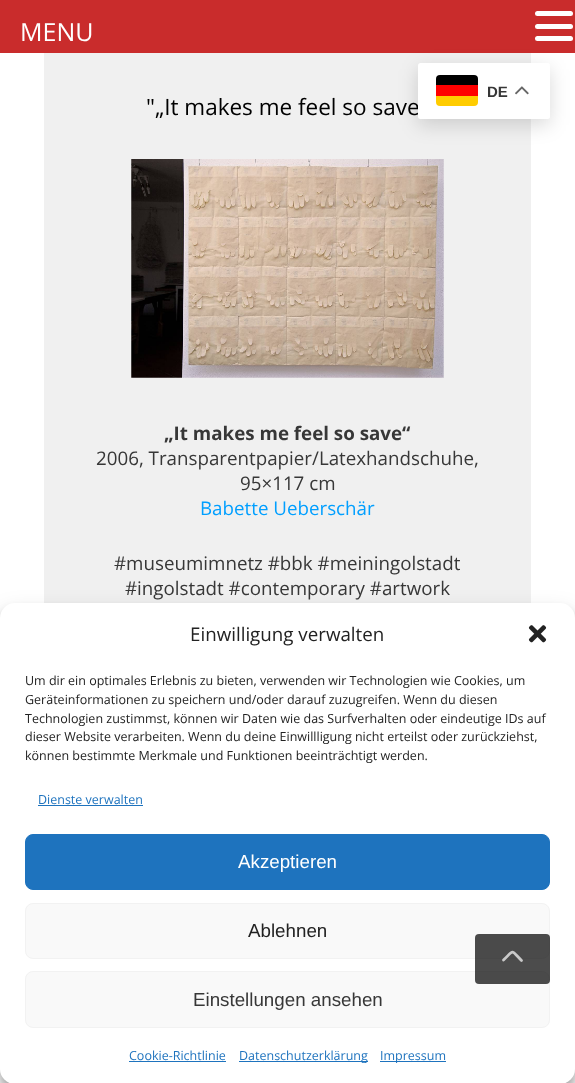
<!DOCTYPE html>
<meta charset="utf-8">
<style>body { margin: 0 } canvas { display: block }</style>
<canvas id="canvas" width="575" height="1083"></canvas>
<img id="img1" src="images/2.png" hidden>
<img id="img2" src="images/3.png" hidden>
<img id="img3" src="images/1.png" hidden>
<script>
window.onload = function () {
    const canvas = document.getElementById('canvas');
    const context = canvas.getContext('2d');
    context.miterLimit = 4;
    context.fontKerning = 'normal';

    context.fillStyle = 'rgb(255, 255, 255)';
    context.fillRect(0, 0, 575, 1083);
    context.fillStyle = 'rgb(201, 44, 44)';
    context.fillRect(0, 0, 575, 53);
    context.fillStyle = 'rgb(255, 255, 255)';
    context.beginPath();
    context.roundRect(535, 11, 38, 5, 2.5);
    context.fill();
    context.beginPath();
    context.roundRect(535, 24, 38, 5, 2.5);
    context.fill();
    context.beginPath();
    context.roundRect(535, 36, 38, 5, 2.5);
    context.fill();
    context.fillStyle = 'rgb(240, 240, 240)';
    context.fillRect(44, 53, 487, 550);
    context.fillStyle = 'rgba(0, 0, 0, 0.15)';
    context.filter = 'blur(9.5px)';
    context.beginPath();
    context.roundRect(418, 69, 132, 56, 2.5);
    context.fill();
    context.filter = 'none';
    context.drawImage(document.getElementById('img1'), 131, 159, 313, 219);
    context.fillStyle = 'rgba(0, 0, 0, 0.23)';
    context.filter = 'blur(4px)';
    context.beginPath();
    context.roundRect(0, 610, 575, 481, 15);
    context.fill();
    context.filter = 'none';
    context.fillStyle = 'rgba(0, 0, 0, 0.19)';
    context.filter = 'blur(12.5px)';
    context.beginPath();
    context.roundRect(0, 615, 575, 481, 15);
    context.fill();
    context.filter = 'none';
    context.fillStyle = 'rgb(255, 255, 255)';
    context.beginPath();
    context.roundRect(0, 603, 575, 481, 15);
    context.fill();
    context.drawImage(document.getElementById('img2'), 528, 625, 19, 18);
    context.fillStyle = 'rgb(30, 115, 190)';
    context.fillRect(38, 805, 105, 1);
    context.beginPath();
    context.roundRect(25.5, 834.5, 524, 55, 7.5);
    context.fill();
    context.strokeStyle = 'rgb(30, 115, 190)';
    context.stroke();
    context.fillStyle = 'rgb(249, 249, 249)';
    context.beginPath();
    context.roundRect(25.5, 903.5, 524, 55, 7.5);
    context.fill();
    context.strokeStyle = 'rgb(242, 242, 242)';
    context.stroke();
    context.beginPath();
    context.roundRect(25.5, 971.5, 524, 56, 7.5);
    context.fill();
    context.stroke();
    context.fillStyle = 'rgb(30, 115, 190)';
    context.fillRect(129, 1061, 97, 1);
    context.fillRect(239, 1061, 129, 1);
    context.fillRect(380, 1061, 66, 1);
    context.fillStyle = 'rgba(0, 0, 0, 0.7)';
    context.beginPath();
    context.roundRect(475, 934, 75, 50, 4);
    context.fill();
    context.beginPath();
    context.moveTo(521.5, 960.5);
    context.bezierCurveTo(510.5, 949.5, 514.5, 949.5, 503.5, 960);
    context.strokeStyle = 'rgba(255, 255, 255, 0.7)';
    context.lineWidth = 2.8;
    context.lineCap = 'round';
    context.lineJoin = 'bevel';
    context.stroke();
    context.font = '25px Open Sans';
    context.fillStyle = 'rgb(255, 255, 255)';
    context.fillText('MENU', 20, 41);
    context.font = '22.5px Open Sans';
    context.fillStyle = 'rgb(0, 0, 0)';
    context.fillText('"„It makes me feel so save', 146, 115);
    context.fillStyle = 'rgb(255, 255, 255)';
    context.beginPath();
    context.roundRect(418, 63, 132, 56, 2.5);
    context.fill();
    context.drawImage(document.getElementById('img3'), 515, 86, 14, 9);
    context.font = 'bold 15px Liberation Sans';
    context.fillStyle = 'rgb(55, 55, 55)';
    context.fillText('DE', 487, 97);
    context.fillStyle = 'rgb(255, 0, 0)';
    context.fillRect(436, 85, 42, 11);
    context.fillStyle = 'rgb(0, 0, 0)';
    context.beginPath();
    context.roundRect(436, 75, 42, 10, [4, 4, 0, 0]);
    context.fill();
    context.fillStyle = 'rgb(255, 204, 0)';
    context.beginPath();
    context.roundRect(436, 96, 42, 10, [0, 0, 4, 4]);
    context.fill();
    context.font = 'bold 18.75px Open Sans';
    context.fillStyle = 'rgb(55, 55, 55)';
    context.fillText('„It makes me feel so save“', 164, 440);
    context.font = '18.75px Open Sans';
    context.fillText('2006, Transparentpapier/Latexhandschuhe,', 96, 465);
    context.fillText('95×117 cm', 240, 490);
    context.fillStyle = 'rgb(0, 159, 255)';
    context.fillText('Babette Ueberschär', 200, 515);
    context.fillStyle = 'rgb(55, 55, 55)';
    context.fillText('#museumimnetz #bbk #meiningolstadt', 114, 570);
    context.fillText('#ingolstadt #contemporary #artwork', 125, 595);
    context.fillStyle = 'rgb(34, 34, 34)';
    context.fillText('Einwilligung verwalten', 190, 641);
    context.font = '12.5px Open Sans';
    context.fillText('Um dir ein optimales Erlebnis zu bieten, verwenden wir Technologien wie Cookies, um', 25, 685);
    context.fillText('Geräteinformationen zu speichern und/oder darauf zuzugreifen. Wenn du diesen', 25, 704);
    context.fillText('Technologien zustimmst, können wir Daten wie das Surfverhalten oder eindeutige IDs auf', 25, 723);
    context.fillText('dieser Website verarbeiten. Wenn du deine Einwillligung nicht erteilst oder zurückziehst,', 25, 741);
    context.fillText('können bestimmte Merkmale und Funktionen beeinträchtigt werden.', 25, 760);
    context.fillStyle = 'rgb(30, 115, 190)';
    context.fillText('Dienste verwalten', 38, 804);
    context.font = '18.75px Liberation Sans';
    context.fillStyle = 'rgb(255, 255, 255)';
    context.fillText('Akzeptieren', 238, 868);
    context.fillStyle = 'rgb(34, 34, 34)';
    context.fillText('Ablehnen', 248, 937);
    context.fillStyle = 'rgb(55, 55, 55)';
    context.fillText('Einstellungen ansehen', 193, 1006);
    context.font = '12.5px Open Sans';
    context.fillStyle = 'rgb(30, 115, 190)';
    context.fillText('Cookie-Richtlinie', 129, 1060);
    context.fillText('Datenschutzerklärung', 239, 1060);
    context.fillText('Impressum', 380, 1060);
};
</script>
